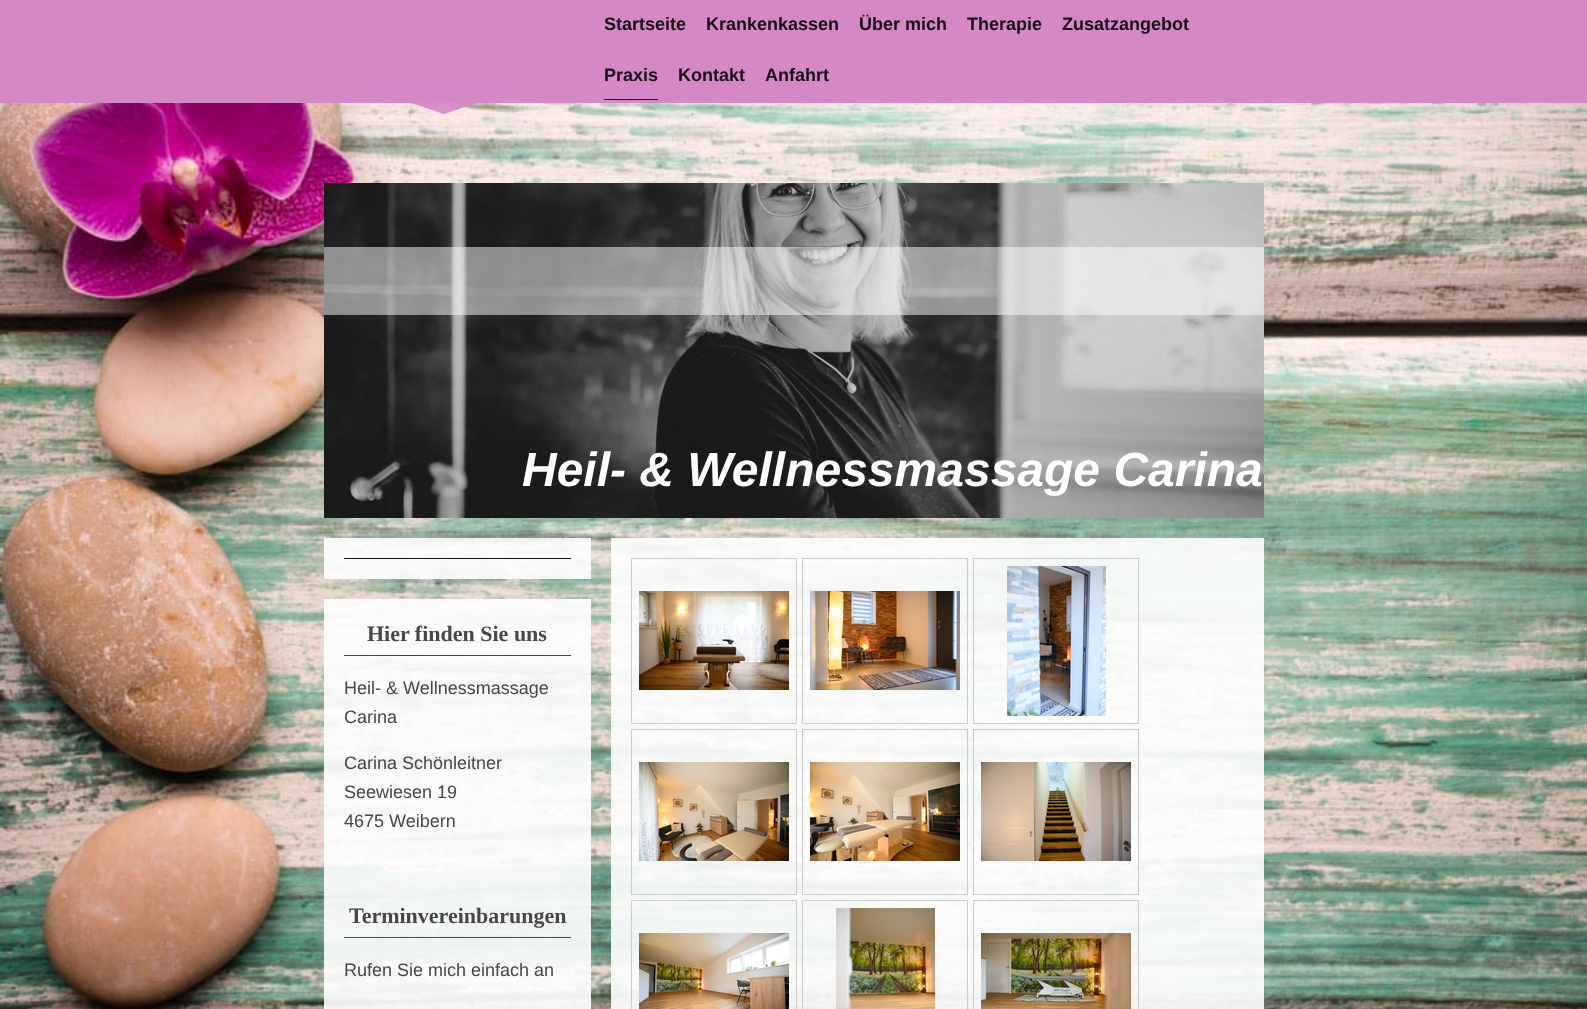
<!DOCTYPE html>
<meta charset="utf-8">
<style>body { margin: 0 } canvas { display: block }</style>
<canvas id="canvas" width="1587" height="1009"></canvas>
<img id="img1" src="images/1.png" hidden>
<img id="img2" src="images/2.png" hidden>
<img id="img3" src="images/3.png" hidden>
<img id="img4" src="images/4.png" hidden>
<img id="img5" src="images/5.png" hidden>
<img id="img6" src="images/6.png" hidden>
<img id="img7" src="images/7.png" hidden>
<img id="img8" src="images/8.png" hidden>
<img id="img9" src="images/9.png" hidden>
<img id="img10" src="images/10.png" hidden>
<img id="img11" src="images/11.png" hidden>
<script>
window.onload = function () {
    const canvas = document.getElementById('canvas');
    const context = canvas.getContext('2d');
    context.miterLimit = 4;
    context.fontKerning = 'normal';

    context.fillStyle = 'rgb(255, 255, 255)';
    context.fillRect(0, 0, 1587, 1009);
    context.drawImage(document.getElementById('img1'), 0, 103, 1587, 906);
    context.fillStyle = 'rgb(214, 135, 198)';
    context.fillRect(0, 0, 1587, 103);
    context.fillStyle = 'rgb(21, 14, 20)';
    context.fillRect(604, 99, 54, 1);
    context.fillStyle = 'rgba(214, 135, 198, 0.9)';
    context.beginPath();
    context.moveTo(324, 74);
    context.lineTo(564, 74);
    context.lineTo(444, 114);
    context.closePath();
    context.fill();
    context.drawImage(document.getElementById('img2'), 324, 183, 940, 335);
    context.fillStyle = 'rgba(255, 255, 255, 0.5)';
    context.fillRect(324, 247, 940, 68);
    context.fillStyle = 'rgba(255, 255, 255, 0.9)';
    context.fillRect(324, 538, 267, 41);
    context.fillStyle = 'rgb(21, 14, 20)';
    context.fillRect(344, 558, 227, 1);
    context.fillStyle = 'rgba(255, 255, 255, 0.9)';
    context.fillRect(324, 599, 267, 410);
    context.fillStyle = 'rgb(71, 71, 71)';
    context.fillRect(344, 655, 227, 1);
    context.fillRect(344, 937, 227, 1);
    context.fillStyle = 'rgba(255, 255, 255, 0.9)';
    context.fillRect(611, 538, 653, 471);
    context.strokeStyle = 'rgb(204, 204, 204)';
    context.strokeRect(631.5, 558.5, 165, 165);
    context.drawImage(document.getElementById('img3'), 639, 591, 150, 99);
    context.strokeRect(802.5, 558.5, 165, 165);
    context.drawImage(document.getElementById('img4'), 810, 591, 150, 99);
    context.strokeRect(973.5, 558.5, 165, 165);
    context.drawImage(document.getElementById('img5'), 1007, 566, 99, 150);
    context.strokeRect(631.5, 729.5, 165, 165);
    context.drawImage(document.getElementById('img6'), 639, 762, 150, 99);
    context.strokeRect(802.5, 729.5, 165, 165);
    context.drawImage(document.getElementById('img7'), 810, 762, 150, 99);
    context.strokeRect(973.5, 729.5, 165, 165);
    context.drawImage(document.getElementById('img8'), 981, 762, 150, 99);
    context.strokeRect(631.5, 900.5, 165, 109);
    context.drawImage(document.getElementById('img9'), 639, 933, 150, 76);
    context.strokeRect(802.5, 900.5, 165, 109);
    context.drawImage(document.getElementById('img10'), 836, 908, 99, 101);
    context.strokeRect(973.5, 900.5, 165, 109);
    context.drawImage(document.getElementById('img11'), 981, 933, 150, 76);
    context.font = 'bold 18px Liberation Sans';
    context.fillStyle = 'rgb(21, 14, 20)';
    context.fillText('Startseite', 604, 30);
    context.fillText('Krankenkassen', 706, 30);
    context.fillText('Über mich', 859, 30);
    context.fillText('Therapie', 967, 30);
    context.fillText('Zusatzangebot', 1062, 30);
    context.fillText('Praxis', 604, 81);
    context.fillText('Kontakt', 678, 81);
    context.fillText('Anfahrt', 765, 81);
    context.font = 'italic bold 48px Liberation Sans';
    context.fillStyle = 'rgb(255, 255, 255)';
    context.fillText('Heil- & Wellnessmassage Carina', 522, 486);
    context.font = 'bold 22px Liberation Serif';
    context.fillStyle = 'rgb(71, 71, 71)';
    context.fillText('Hier finden Sie uns', 367, 641);
    context.font = '18px Liberation Sans';
    context.fillText('Heil- & Wellnessmassage', 344, 694);
    context.fillText('Carina', 344, 723);
    context.fillText('Carina Schönleitner', 344, 769);
    context.fillText('Seewiesen 19', 344, 798);
    context.fillText('4675 Weibern', 344, 827);
    context.font = 'bold 22px Liberation Serif';
    context.fillText('Terminvereinbarungen', 349, 923);
    context.font = '18px Liberation Sans';
    context.fillText('Rufen Sie mich einfach an', 344, 976);
};
</script>
